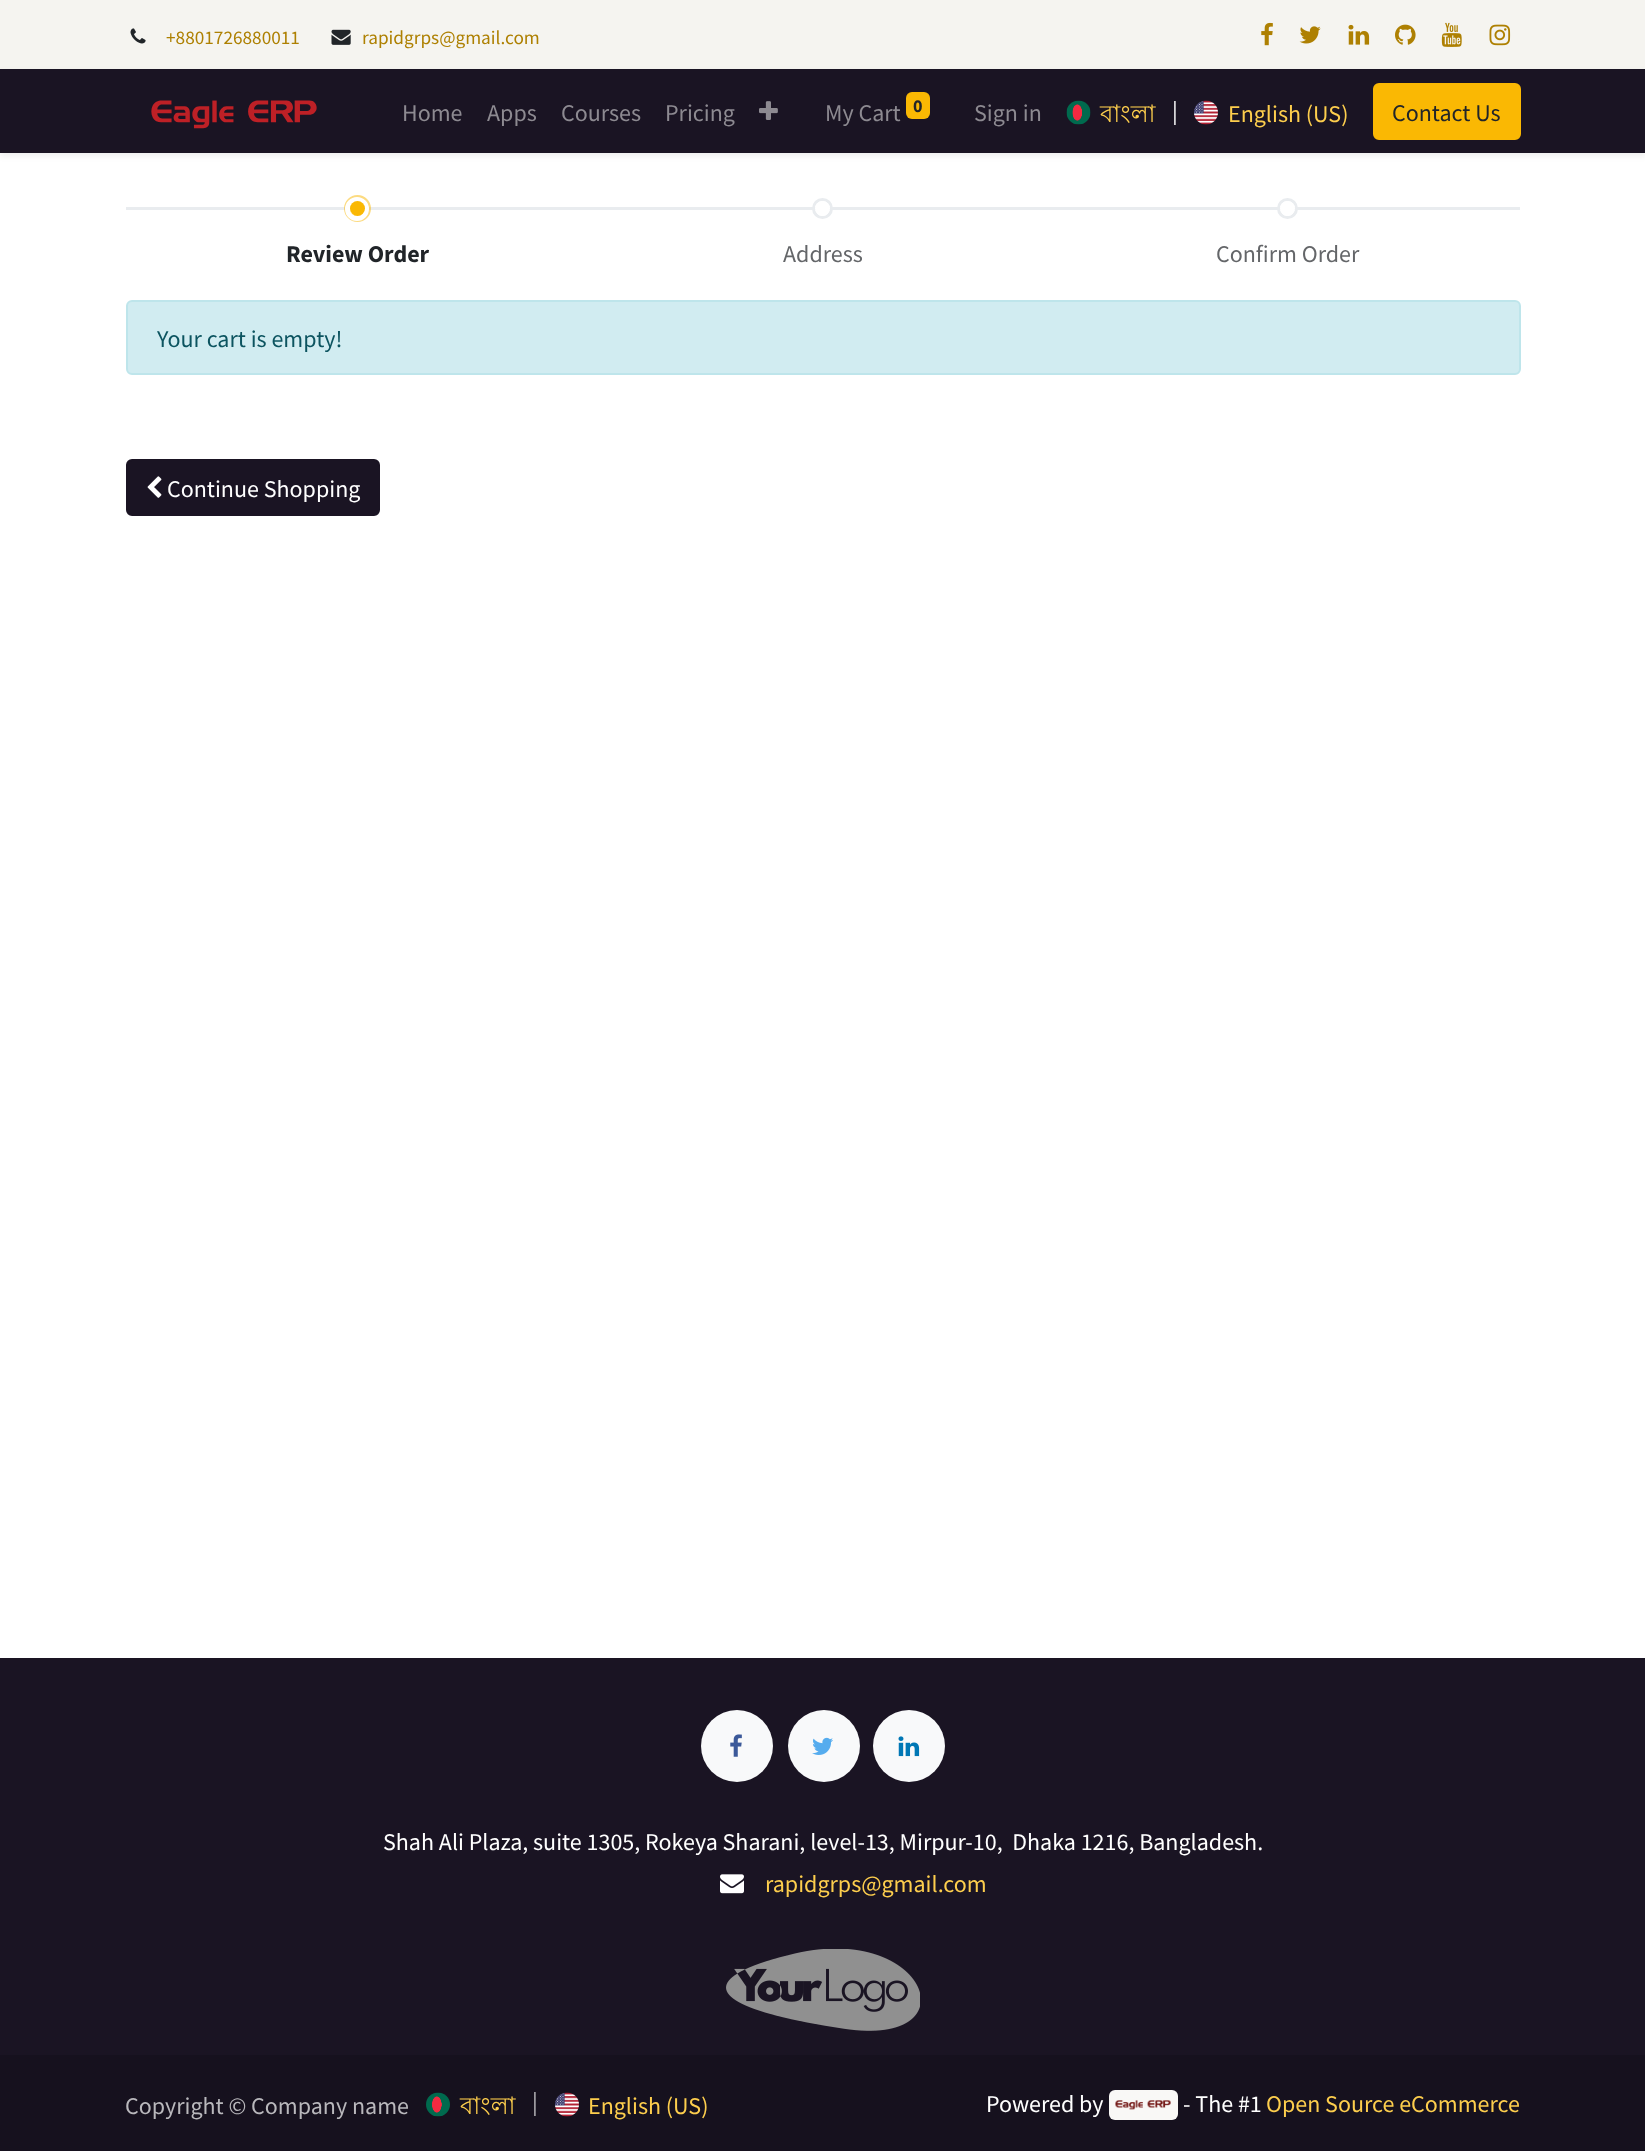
<!DOCTYPE html>
<meta charset="utf-8">
<style>body { margin: 0 } canvas { display: block }</style>
<canvas id="canvas" width="1645" height="2151"></canvas>
<img id="img1" src="images/1.png" hidden>
<img id="img2" src="images/2.png" hidden>
<img id="img3" src="images/3.png" hidden>
<img id="img4" src="images/4.png" hidden>
<img id="img5" src="images/5.png" hidden>
<img id="img6" src="images/6.png" hidden>
<img id="img7" src="images/7.png" hidden>
<img id="img8" src="images/8.png" hidden>
<img id="img9" src="images/9.png" hidden>
<img id="img10" src="images/10.png" hidden>
<img id="img11" src="images/11.png" hidden>
<img id="img12" src="images/12.png" hidden>
<img id="img13" src="images/13.png" hidden>
<img id="img14" src="images/14.png" hidden>
<img id="img15" src="images/15.png" hidden>
<img id="img16" src="images/16.png" hidden>
<img id="img17" src="images/17.png" hidden>
<img id="img18" src="images/18.png" hidden>
<img id="img19" src="images/19.png" hidden>
<img id="img20" src="images/20.png" hidden>
<img id="img21" src="images/21.png" hidden>
<script>
window.onload = function () {
    const canvas = document.getElementById('canvas');
    const context = canvas.getContext('2d');
    context.miterLimit = 4;
    context.fontKerning = 'normal';

    context.fillStyle = 'rgb(255, 255, 255)';
    context.fillRect(0, 0, 1645, 2151);
    context.fillStyle = 'rgb(245, 244, 240)';
    context.fillRect(0, 0, 1645, 69);
    context.drawImage(document.getElementById('img1'), 130, 28, 16, 16);
    context.drawImage(document.getElementById('img2'), 331, 29, 20, 16);
    context.drawImage(document.getElementById('img3'), 1261, 22, 12, 24);
    context.drawImage(document.getElementById('img4'), 1299, 26, 22, 18);
    context.drawImage(document.getElementById('img5'), 1348, 24, 22, 21);
    context.drawImage(document.getElementById('img6'), 1395, 24, 21, 21);
    context.drawImage(document.getElementById('img7'), 1441, 22, 21, 25);
    context.drawImage(document.getElementById('img8'), 1489, 24, 22, 22);
    context.fillStyle = 'rgba(0, 0, 0, 0.07)';
    context.filter = 'blur(3px)';
    context.beginPath();
    context.rect(0, 72, 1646, 84);
    context.fill();
    context.filter = 'none';
    context.fillStyle = 'rgb(26, 20, 35)';
    context.fillRect(0, 69, 1645, 84);
    context.drawImage(document.getElementById('img9'), 151, 100, 166, 29);
    context.drawImage(document.getElementById('img10'), 759, 101, 19, 19);
    context.fillStyle = 'rgb(250, 184, 3)';
    context.beginPath();
    context.roundRect(906, 92, 24, 27, 6);
    context.fill();
    context.drawImage(document.getElementById('img11'), 1066, 100, 25, 25);
    context.drawImage(document.getElementById('img12'), 1194, 100, 24, 25);
    context.beginPath();
    context.roundRect(1374, 84, 146, 55, 5);
    context.fill();
    context.strokeStyle = 'rgb(250, 184, 3)';
    context.lineWidth = 2;
    context.stroke();
    context.fillStyle = 'rgb(233, 236, 239)';
    context.fillRect(126, 207, 1394, 3);
    context.beginPath();
    context.arc(357.5, 208.5, 10.5, 0, 2 * Math.PI);
    context.strokeStyle = 'rgba(250, 184, 3, 0.5)';
    context.lineWidth = 6;
    context.stroke();
    context.beginPath();
    context.arc(357, 209, 9.5, 0, 2 * Math.PI);
    context.strokeStyle = 'rgb(255, 255, 255)';
    context.lineWidth = 5;
    context.stroke();
    context.fillStyle = 'rgb(250, 184, 3)';
    context.beginPath();
    context.arc(357.5, 208.5, 7.5, 0, 2 * Math.PI);
    context.fill();
    context.beginPath();
    context.arc(822.5, 208.5, 9, 0, 2 * Math.PI);
    context.strokeStyle = 'rgb(233, 236, 239)';
    context.lineWidth = 3;
    context.stroke();
    context.fillStyle = 'rgb(255, 255, 255)';
    context.beginPath();
    context.arc(822.5, 208.5, 7.5, 0, 2 * Math.PI);
    context.fill();
    context.beginPath();
    context.arc(1287.5, 208.5, 9, 0, 2 * Math.PI);
    context.stroke();
    context.beginPath();
    context.arc(1287.5, 208.5, 7.5, 0, 2 * Math.PI);
    context.fill();
    context.fillStyle = 'rgb(209, 236, 241)';
    context.beginPath();
    context.roundRect(127, 301, 1393, 73, 5);
    context.fill();
    context.strokeStyle = 'rgb(190, 229, 235)';
    context.lineWidth = 2;
    context.stroke();
    context.fillStyle = 'rgb(26, 20, 35)';
    context.beginPath();
    context.roundRect(127, 460, 252, 55, 5);
    context.fill();
    context.strokeStyle = 'rgb(26, 20, 35)';
    context.stroke();
    context.drawImage(document.getElementById('img13'), 147, 476, 15, 22);
    context.fillRect(0, 1658, 1645, 397);
    context.fillStyle = 'rgb(248, 249, 250)';
    context.beginPath();
    context.arc(737, 1746, 36, 0, 2 * Math.PI);
    context.fill();
    context.drawImage(document.getElementById('img14'), 730, 1734, 12, 23);
    context.beginPath();
    context.arc(824, 1746, 36, 0, 2 * Math.PI);
    context.fill();
    context.drawImage(document.getElementById('img15'), 812, 1737, 21, 18);
    context.beginPath();
    context.arc(909, 1746, 36, 0, 2 * Math.PI);
    context.fill();
    context.drawImage(document.getElementById('img16'), 898, 1736, 22, 21);
    context.drawImage(document.getElementById('img17'), 720, 1874, 24, 20);
    context.drawImage(document.getElementById('img18'), 726, 1949, 194, 82);
    context.fillStyle = 'rgb(22, 17, 30)';
    context.fillRect(0, 2055, 1645, 96);
    context.drawImage(document.getElementById('img19'), 426, 2092, 24, 25);
    context.drawImage(document.getElementById('img20'), 555, 2092, 24, 25);
    context.fillStyle = 'rgb(249, 248, 246)';
    context.beginPath();
    context.roundRect(1109, 2090, 69, 30, 6);
    context.fill();
    context.drawImage(document.getElementById('img21'), 1115, 2100, 56, 10);
    context.font = '19.25px Source Sans Pro';
    context.fillStyle = 'rgb(174, 128, 2)';
    context.fillText('+8801726880011', 166, 44);
    context.fillText('rapidgrps@gmail.com', 362, 44);
    context.font = '24px Source Sans Pro';
    context.fillStyle = 'rgb(141, 138, 145)';
    context.fillText('Home', 402, 121);
    context.fillText('Apps', 487, 121);
    context.fillText('Courses', 561, 121);
    context.fillText('Pricing', 665, 121);
    context.fillText('My Cart', 825, 121);
    context.font = 'bold 18px Source Sans Pro';
    context.fillStyle = 'rgb(33, 37, 41)';
    context.fillText('0', 913, 112);
    context.font = '24px Source Sans Pro';
    context.fillStyle = 'rgb(141, 138, 145)';
    context.fillText('Sign in', 974, 121);
    context.font = '24px Lohit Bengali';
    context.fillStyle = 'rgb(253, 206, 77)';
    context.fillText('বাংলা', 1100, 122);
    context.font = '24px Source Sans Pro';
    context.fillStyle = 'rgb(255, 255, 255)';
    context.fillText('|', 1172, 119);
    context.fillStyle = 'rgb(253, 206, 77)';
    context.fillText('English (US)', 1228, 122);
    context.fillStyle = 'rgb(33, 37, 41)';
    context.fillText('Contact Us', 1392, 121);
    context.font = 'bold 24px Source Sans Pro';
    context.fillText('Review Order', 286, 262);
    context.font = '24px Source Sans Pro';
    context.fillStyle = 'rgb(100, 102, 105)';
    context.fillText('Address', 783, 262);
    context.fillText('Confirm Order', 1216, 262);
    context.fillStyle = 'rgb(12, 84, 96)';
    context.fillText('Your cart is empty!', 157, 347);
    context.fillStyle = 'rgb(255, 255, 255)';
    context.fillText('Continue Shopping', 167, 497);
    context.fillText('Shah Ali Plaza, suite 1305, Rokeya Sharani, level-13, Mirpur-10,  Dhaka 1216, Bangladesh.', 383, 1850);
    context.fillStyle = 'rgb(253, 206, 77)';
    context.fillText('rapidgrps@gmail.com', 765, 1892);
    context.fillStyle = 'rgb(185, 184, 188)';
    context.fillText('Copyright © Company name', 125, 2114);
    context.font = '24px Lohit Bengali';
    context.fillStyle = 'rgb(253, 206, 77)';
    context.fillText('বাংলা', 460, 2114);
    context.font = '24px Source Sans Pro';
    context.fillStyle = 'rgb(185, 184, 188)';
    context.fillText('|', 532, 2110);
    context.fillStyle = 'rgb(253, 206, 77)';
    context.fillText('English (US)', 588, 2114);
    context.fillStyle = 'rgb(255, 255, 255)';
    context.fillText('Powered by', 986, 2112);
    context.fillText('- The #1', 1183, 2112);
    context.fillStyle = 'rgb(253, 206, 77)';
    context.fillText('Open Source eCommerce', 1266, 2112);
};
</script>
